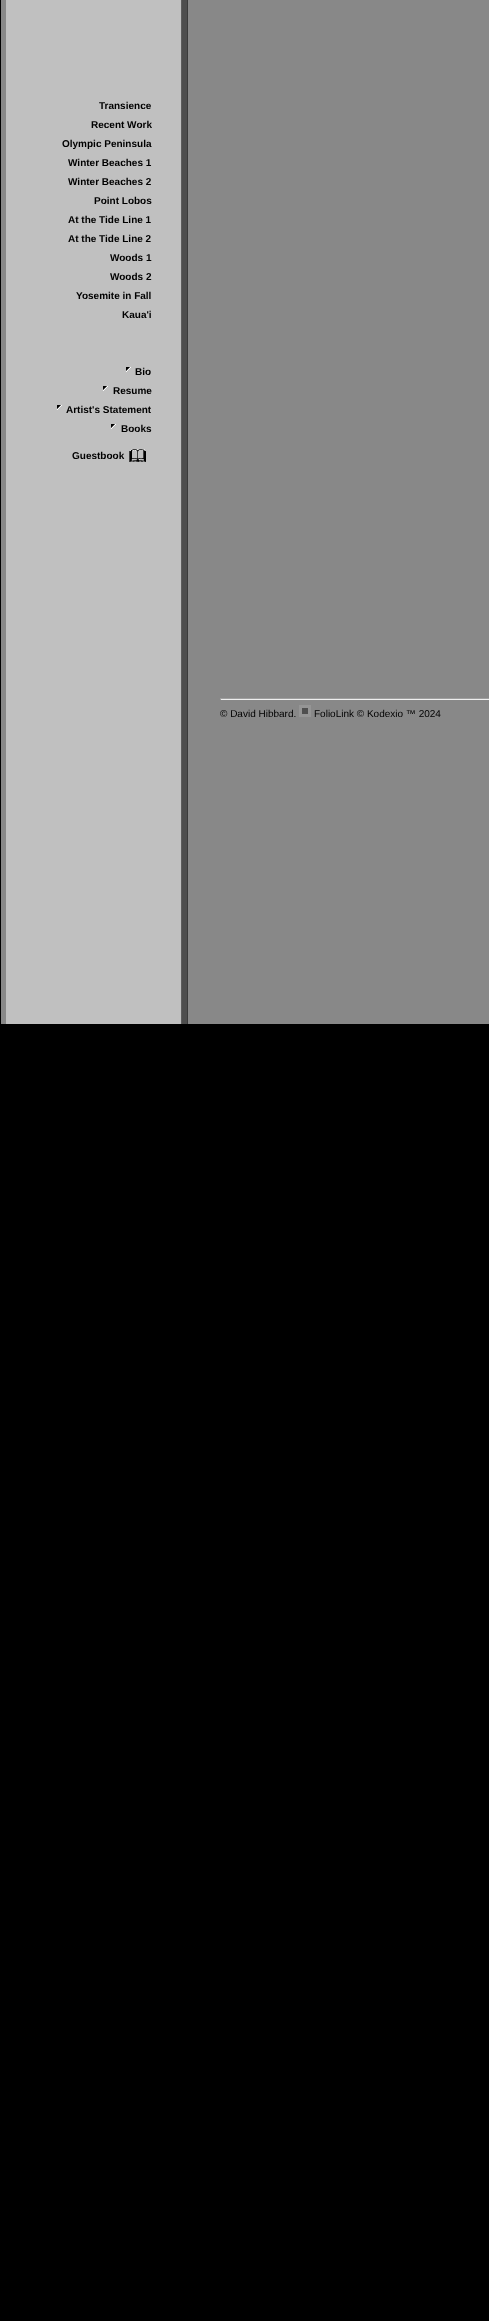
<!DOCTYPE html>
<meta charset="utf-8">
<style>body { margin: 0 } canvas { display: block }</style>
<canvas id="canvas" width="489" height="2321"></canvas>
<img id="img1" src="images/1.png" hidden>
<img id="img2" src="images/2.png" hidden>
<img id="img3" src="images/3.png" hidden>
<script>
window.onload = function () {
    const canvas = document.getElementById('canvas');
    const context = canvas.getContext('2d');
    context.miterLimit = 4;
    context.fontKerning = 'normal';

    context.fillStyle = 'rgb(0, 0, 0)';
    context.fillRect(0, 0, 489, 2321);
    context.fillStyle = 'rgb(136, 136, 136)';
    context.fillRect(1, 0, 488, 1024);
    context.fillStyle = 'rgb(192, 192, 192)';
    context.fillRect(6, 0, 175, 1024);
    context.drawImage(document.getElementById('img1'), 126, 367, 5, 5);
    context.drawImage(document.getElementById('img1'), 103, 386, 5, 5);
    context.drawImage(document.getElementById('img1'), 57, 405, 5, 5);
    context.drawImage(document.getElementById('img1'), 111, 424, 5, 5);
    context.drawImage(document.getElementById('img2'), 129, 449, 17, 13);
    context.fillStyle = 'rgb(93, 93, 93)';
    context.fillRect(181, 0, 1, 1024);
    context.fillStyle = 'rgb(78, 78, 78)';
    context.fillRect(182, 0, 5, 1024);
    context.fillStyle = 'rgb(59, 59, 59)';
    context.fillRect(187, 0, 1, 1024);
    context.fillStyle = 'rgb(159, 159, 159)';
    context.fillRect(220, 698, 269, 1);
    context.fillStyle = 'rgb(238, 238, 238)';
    context.fillRect(220, 699, 269, 1);
    context.fillStyle = 'rgb(159, 159, 159)';
    context.fillRect(220, 698, 1, 2);
    context.drawImage(document.getElementById('img3'), 299, 705, 12, 12);
    context.font = 'bold 10px Liberation Sans';
    context.fillStyle = 'rgb(0, 0, 0)';
    context.fillText('Transience', 99, 109);
    context.fillText('Recent Work', 91, 128);
    context.fillText('Olympic Peninsula', 62, 147);
    context.fillText('Winter Beaches 1', 68, 166);
    context.fillText('Winter Beaches 2', 68, 185);
    context.fillText('Point Lobos', 94, 204);
    context.fillText('At the Tide Line 1', 68, 223);
    context.fillText('At the Tide Line 2', 68, 242);
    context.fillText('Woods 1', 110, 261);
    context.fillText('Woods 2', 110, 280);
    context.fillText('Yosemite in Fall', 76, 299);
    context.fillText('Kaua\'i', 122, 318);
    context.fillText('Bio', 135, 375);
    context.fillText('Resume', 113, 394);
    context.fillText('Artist\'s Statement', 66, 413);
    context.fillText('Books', 121, 432);
    context.fillText('Guestbook', 72, 459);
    context.font = '10px Liberation Sans';
    context.fillText('© David Hibbard.', 220, 717);
    context.fillText('FolioLink © Kodexio ™ 2024', 314, 717);
};
</script>
